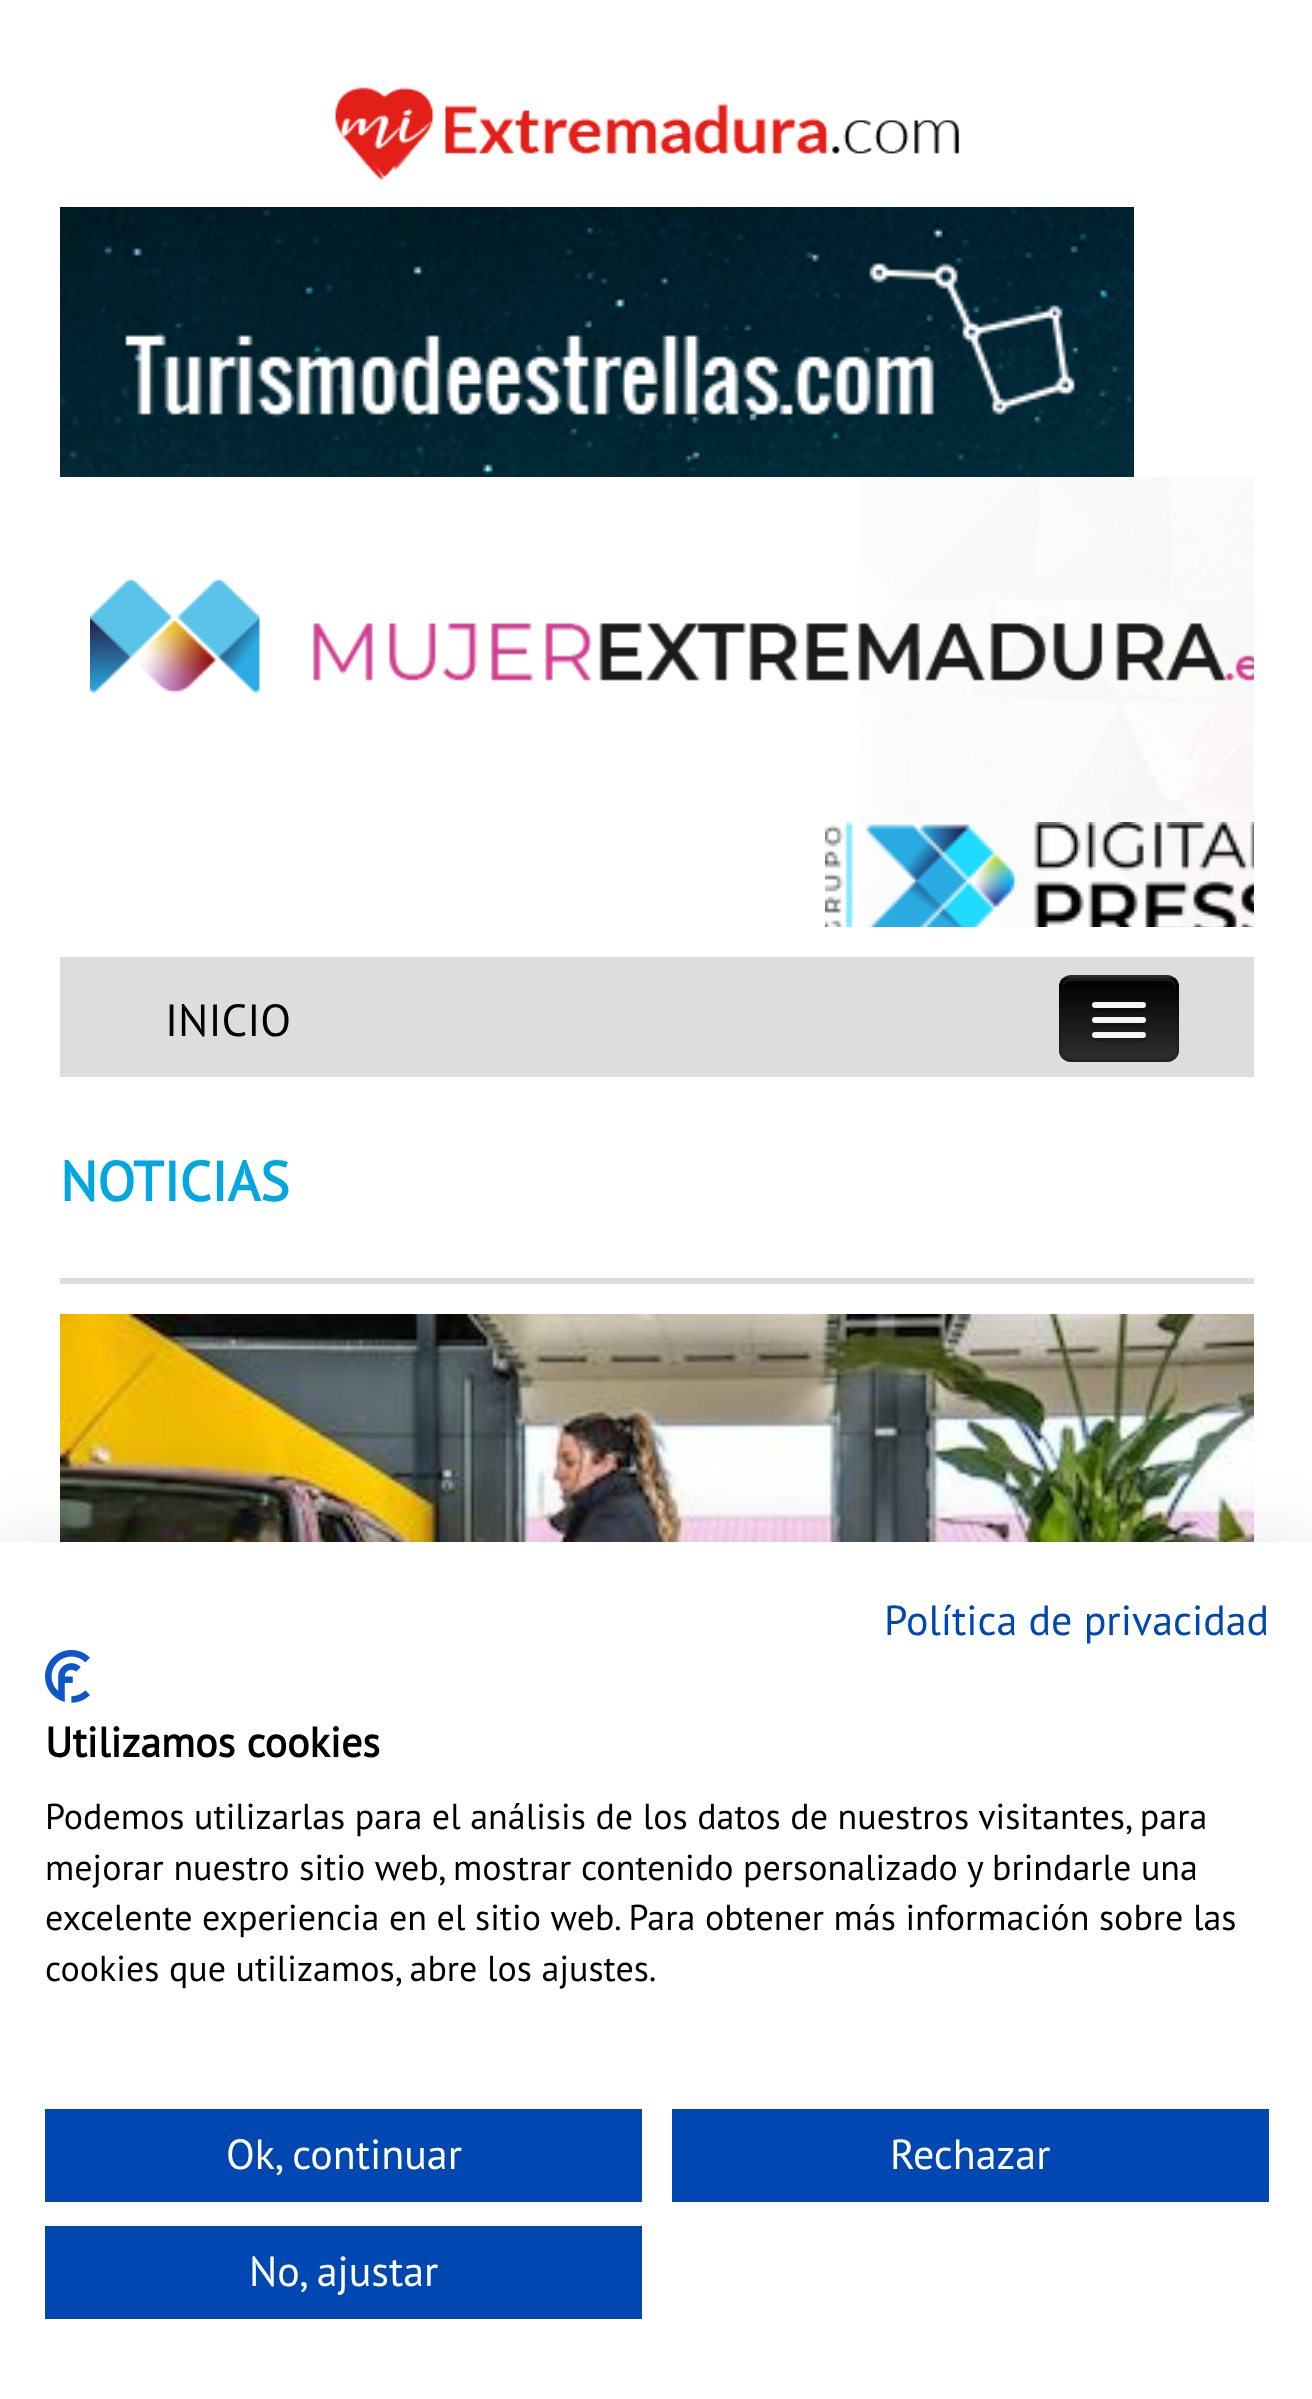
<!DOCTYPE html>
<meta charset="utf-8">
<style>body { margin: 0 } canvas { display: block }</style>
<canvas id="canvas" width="1312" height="2399"></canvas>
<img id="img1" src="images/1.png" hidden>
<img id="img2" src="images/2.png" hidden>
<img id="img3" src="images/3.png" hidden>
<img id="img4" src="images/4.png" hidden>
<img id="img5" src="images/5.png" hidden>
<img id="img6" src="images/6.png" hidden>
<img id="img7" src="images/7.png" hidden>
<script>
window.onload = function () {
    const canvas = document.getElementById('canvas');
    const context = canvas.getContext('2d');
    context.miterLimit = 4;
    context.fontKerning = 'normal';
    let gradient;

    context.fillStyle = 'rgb(255, 255, 255)';
    context.fillRect(0, 0, 1312, 2399);
    context.drawImage(document.getElementById('img1'), 335, 87, 625, 93);
    context.drawImage(document.getElementById('img2'), 60, 207, 1074, 270);
    context.drawImage(document.getElementById('img3'), 860, 477, 394, 450);
    context.drawImage(document.getElementById('img4'), 90, 579, 1164, 115);
    context.drawImage(document.getElementById('img5'), 825, 822, 429, 105);
    context.fillStyle = 'rgb(221, 221, 221)';
    context.fillRect(60, 957, 1194, 120);
    context.fillStyle = 'rgb(224, 224, 224)';
    context.beginPath();
    context.moveTo(1059, 1050);
    context.bezierCurveTo(1059, 1068, 1073, 1065, 1087, 1065);
    context.lineTo(1151, 1065);
    context.bezierCurveTo(1165, 1065, 1179, 1068, 1179, 1050);
    context.bezierCurveTo(1179, 1057, 1174, 1062, 1167, 1062);
    context.lineTo(1071, 1062);
    context.bezierCurveTo(1064, 1062, 1059, 1057, 1059, 1050);
    context.closePath();
    context.fill();
    context.fillStyle = 'rgb(46, 46, 46)';
    context.beginPath();
    context.roundRect(1059, 975, 120, 87, 12);
    context.fill();
    context.save();
    context.beginPath();
    context.roundRect(1059, 975, 120, 87, 12);
    context.clip();
    gradient = context.createLinearGradient(1119, 978, 1119, 1059);
    gradient.addColorStop(0, 'rgb(0, 0, 0)');
    gradient.addColorStop(1, 'rgb(46, 46, 46)');
    context.fillStyle = gradient;
    context.fillRect(1059, 978, 120, 81);
    context.restore();
    context.fillStyle = 'rgba(255, 255, 255, 0.1)';
    context.beginPath();
    context.moveTo(1071, 981);
    context.lineTo(1167, 981);
    context.bezierCurveTo(1172, 981, 1176, 985, 1176, 990);
    context.bezierCurveTo(1176, 974, 1164, 978, 1151, 978);
    context.lineTo(1087, 978);
    context.bezierCurveTo(1074, 978, 1062, 974, 1062, 990);
    context.bezierCurveTo(1062, 985, 1066, 981, 1071, 981);
    context.closePath();
    context.fill();
    context.beginPath();
    context.moveTo(1174.5, 1057.5);
    context.bezierCurveTo(1172.5, 1059.5, 1170, 1060.5, 1167, 1060.5);
    context.lineTo(1071, 1060.5);
    context.bezierCurveTo(1068, 1060.5, 1065.5, 1059.5, 1063.5, 1057.5);
    context.strokeStyle = 'rgba(0, 0, 0, 0.25)';
    context.lineWidth = 3;
    context.stroke();
    context.beginPath();
    context.moveTo(1063.5, 1057.5);
    context.bezierCurveTo(1061.5, 1055.5, 1060.5, 1053, 1060.5, 1050);
    context.lineTo(1060.5, 987);
    context.bezierCurveTo(1060.5, 984, 1061.5, 981.5, 1063.5, 979.5);
    context.bezierCurveTo(1065.5, 977.5, 1068, 976.5, 1071, 976.5);
    context.lineTo(1167, 976.5);
    context.bezierCurveTo(1170, 976.5, 1172.5, 977.5, 1174.5, 979.5);
    context.bezierCurveTo(1176.5, 981.5, 1177.5, 984, 1177.5, 987);
    context.lineTo(1177.5, 1050);
    context.bezierCurveTo(1177.5, 1053, 1176.5, 1055.5, 1174.5, 1057.5);
    context.strokeStyle = 'rgba(0, 0, 0, 0.1)';
    context.stroke();
    context.fillStyle = 'rgb(13, 13, 13)';
    context.beginPath();
    context.moveTo(1092, 1006);
    context.bezierCurveTo(1089, 1013, 1103, 1011, 1103, 1011);
    context.lineTo(1135, 1011);
    context.bezierCurveTo(1135, 1011, 1149, 1013, 1146, 1006);
    context.bezierCurveTo(1145, 1007, 1144, 1008, 1143, 1008);
    context.lineTo(1095, 1008);
    context.bezierCurveTo(1094, 1008, 1093, 1007, 1092, 1006);
    context.closePath();
    context.fill();
    context.fillStyle = 'rgb(245, 245, 245)';
    context.beginPath();
    context.roundRect(1092, 1002, 54, 6, 3);
    context.fill();
    context.fillStyle = 'rgb(20, 20, 20)';
    context.beginPath();
    context.moveTo(1092, 1022);
    context.bezierCurveTo(1089, 1028, 1103, 1026, 1103, 1026);
    context.lineTo(1135, 1026);
    context.bezierCurveTo(1135, 1026, 1149, 1028, 1146, 1022);
    context.bezierCurveTo(1145, 1022, 1144, 1023, 1143, 1023);
    context.lineTo(1095, 1023);
    context.bezierCurveTo(1094, 1023, 1093, 1022, 1092, 1022);
    context.closePath();
    context.fill();
    context.fillStyle = 'rgb(245, 245, 245)';
    context.beginPath();
    context.roundRect(1092, 1017, 54, 6, 3);
    context.fill();
    context.fillStyle = 'rgb(26, 26, 26)';
    context.beginPath();
    context.moveTo(1092, 1036);
    context.bezierCurveTo(1089, 1043, 1103, 1041, 1103, 1041);
    context.lineTo(1135, 1041);
    context.bezierCurveTo(1135, 1041, 1149, 1043, 1146, 1036);
    context.bezierCurveTo(1145, 1037, 1144, 1038, 1143, 1038);
    context.lineTo(1095, 1038);
    context.bezierCurveTo(1094, 1038, 1093, 1037, 1092, 1036);
    context.closePath();
    context.fill();
    context.fillStyle = 'rgb(245, 245, 245)';
    context.beginPath();
    context.roundRect(1092, 1032, 54, 6, 3);
    context.fill();
    context.fillStyle = 'rgb(221, 221, 221)';
    context.fillRect(60, 1278, 1194, 6);
    context.drawImage(document.getElementById('img6'), 60, 1314, 1194, 228);
    context.fillStyle = 'rgba(0, 0, 0, 0.1)';
    context.filter = 'blur(36px)';
    context.beginPath();
    context.rect(0, 1542, 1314, 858);
    context.fill();
    context.filter = 'none';
    context.fillStyle = 'rgb(255, 255, 255)';
    context.fillRect(0, 1542, 1312, 857);
    context.drawImage(document.getElementById('img7'), 45, 1650, 45, 53);
    context.fillStyle = 'rgb(0, 71, 178)';
    context.fillRect(45, 2109, 597, 93);
    context.fillRect(672, 2109, 597, 93);
    context.fillRect(45, 2226, 597, 93);
    context.font = '45px PT Sans';
    context.fillStyle = 'rgb(0, 0, 0)';
    context.fillText('INICIO', 165, 1036);
    context.font = 'bold 55.5px PT Sans';
    context.fillStyle = 'rgb(0, 167, 224)';
    context.fillText('NOTICIAS', 60, 1201);
    context.font = '42px PT Sans';
    context.fillStyle = 'rgb(0, 71, 178)';
    context.fillText('Política de privacidad', 884, 1635);
    context.font = 'bold 42px PT Sans';
    context.fillStyle = 'rgb(0, 0, 0)';
    context.fillText('Utilizamos cookies', 45, 1757);
    context.font = '36px PT Sans';
    context.fillText('Podemos utilizarlas para el análisis de los datos de nuestros visitantes, para', 45, 1829);
    context.fillText('mejorar nuestro sitio web, mostrar contenido personalizado y brindarle una', 45, 1880);
    context.fillText('excelente experiencia en el sitio web. Para obtener más información sobre las', 45, 1930);
    context.fillText('cookies que utilizamos, abre los ajustes.', 45, 1981);
    context.font = '42px PT Sans';
    context.fillStyle = 'rgb(255, 255, 255)';
    context.fillText('Ok, continuar', 226, 2169);
    context.fillText('Rechazar', 890, 2169);
    context.fillText('No, ajustar', 249, 2286);
};
</script>
